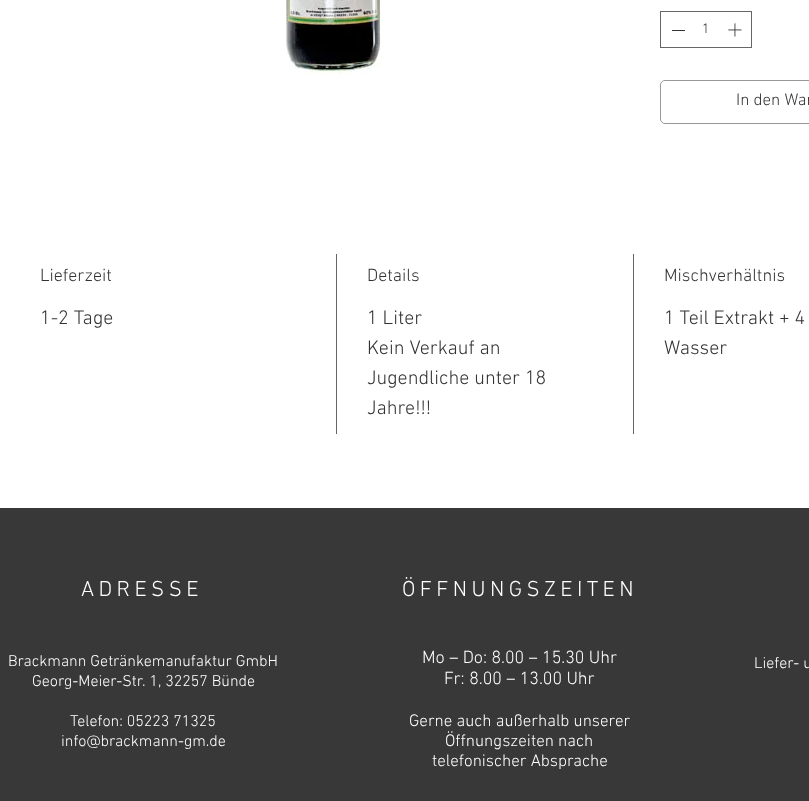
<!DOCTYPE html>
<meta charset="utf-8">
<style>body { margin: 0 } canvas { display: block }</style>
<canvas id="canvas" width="809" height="801"></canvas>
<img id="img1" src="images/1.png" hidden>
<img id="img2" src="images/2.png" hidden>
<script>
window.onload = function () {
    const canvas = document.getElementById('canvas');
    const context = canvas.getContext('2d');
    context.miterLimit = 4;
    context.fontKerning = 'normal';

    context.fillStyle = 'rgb(255, 255, 255)';
    context.fillRect(0, 0, 809, 801);
    context.drawImage(document.getElementById('img1'), 286, 0, 96, 75);
    context.strokeStyle = 'rgb(102, 102, 102)';
    context.strokeRect(660.5, 11.5, 91, 36);
    context.fillStyle = 'rgb(51, 51, 51)';
    context.fillRect(672, 30, 13, 1);
    context.drawImage(document.getElementById('img2'), 728, 23, 14, 14);
    context.beginPath();
    context.roundRect(660.5, 80.5, 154, 43, 4.5);
    context.strokeStyle = 'rgb(153, 153, 153)';
    context.stroke();
    context.fillStyle = 'rgb(102, 102, 102)';
    context.fillRect(336, 254, 1, 180);
    context.fillRect(633, 254, 1, 180);
    context.fillStyle = 'rgb(56, 56, 56)';
    context.fillRect(0, 508, 809, 293);
    context.font = '300 14px "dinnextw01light"';
    context.fillStyle = 'rgb(51, 51, 51)';
    context.fillText('1', 702, 33);
    context.font = '300 17px "dinnextw01light"';
    context.fillText('In den War', 736, 105);
    context.font = '300 18px "dinnextw01light"';
    context.fillText('Lieferzeit', 40, 281);
    context.font = '300 20px "dinnextw01light"';
    context.fillText('1-2 Tage', 40, 324);
    context.font = '300 18px "dinnextw01light"';
    context.fillText('Details', 367, 281);
    context.font = '300 20px "dinnextw01light"';
    context.fillText('1 Liter', 367, 324);
    context.fillText('Kein Verkauf an', 367, 354);
    context.fillText('Jugendliche unter 18', 367, 384);
    context.fillText('Jahre!!!', 367, 414);
    context.font = '300 18px "dinnextw01light"';
    context.fillText('Mischverhältnis', 664, 281);
    context.font = '300 20px "dinnextw01light"';
    context.fillText('1 Teil Extrakt + 4', 664, 324);
    context.fillText('Wasser', 664, 354);
    context.letterSpacing = '4.4px';
    context.font = '300 22px "dinnextw01light"';
    context.fillStyle = 'rgb(255, 255, 255)';
    context.fillText('ADRESSE', 81, 596);
    context.fillText('ÖFFNUNGSZEITEN', 402, 596);
    context.letterSpacing = '0px';
    context.font = '300 16px "dinnextw01light"';
    context.fillText('Brackmann Getränkemanufaktur GmbH', 8, 666);
    context.fillText('Georg-Meier-Str. 1, 32257 Bünde', 32, 686);
    context.fillText('Telefon: 05223 71325', 70, 726);
    context.fillText('info@brackmann-gm.de', 61, 746);
    context.font = '300 18px "dinnextw01light"';
    context.fillText('Mo – Do: 8.00 – 15.30 Uhr', 422, 663);
    context.fillText('Fr: 8.00 – 13.00 Uhr', 444, 684);
    context.font = '300 17px "dinnextw01light"';
    context.fillText('Gerne auch außerhalb unserer', 409, 726);
    context.fillText('Öffnungszeiten nach', 445, 746);
    context.fillText('telefonischer Absprache', 432, 766);
    context.font = '300 16px "dinnextw01light"';
    context.fillText('Liefer- u', 754, 668);
};
</script>
